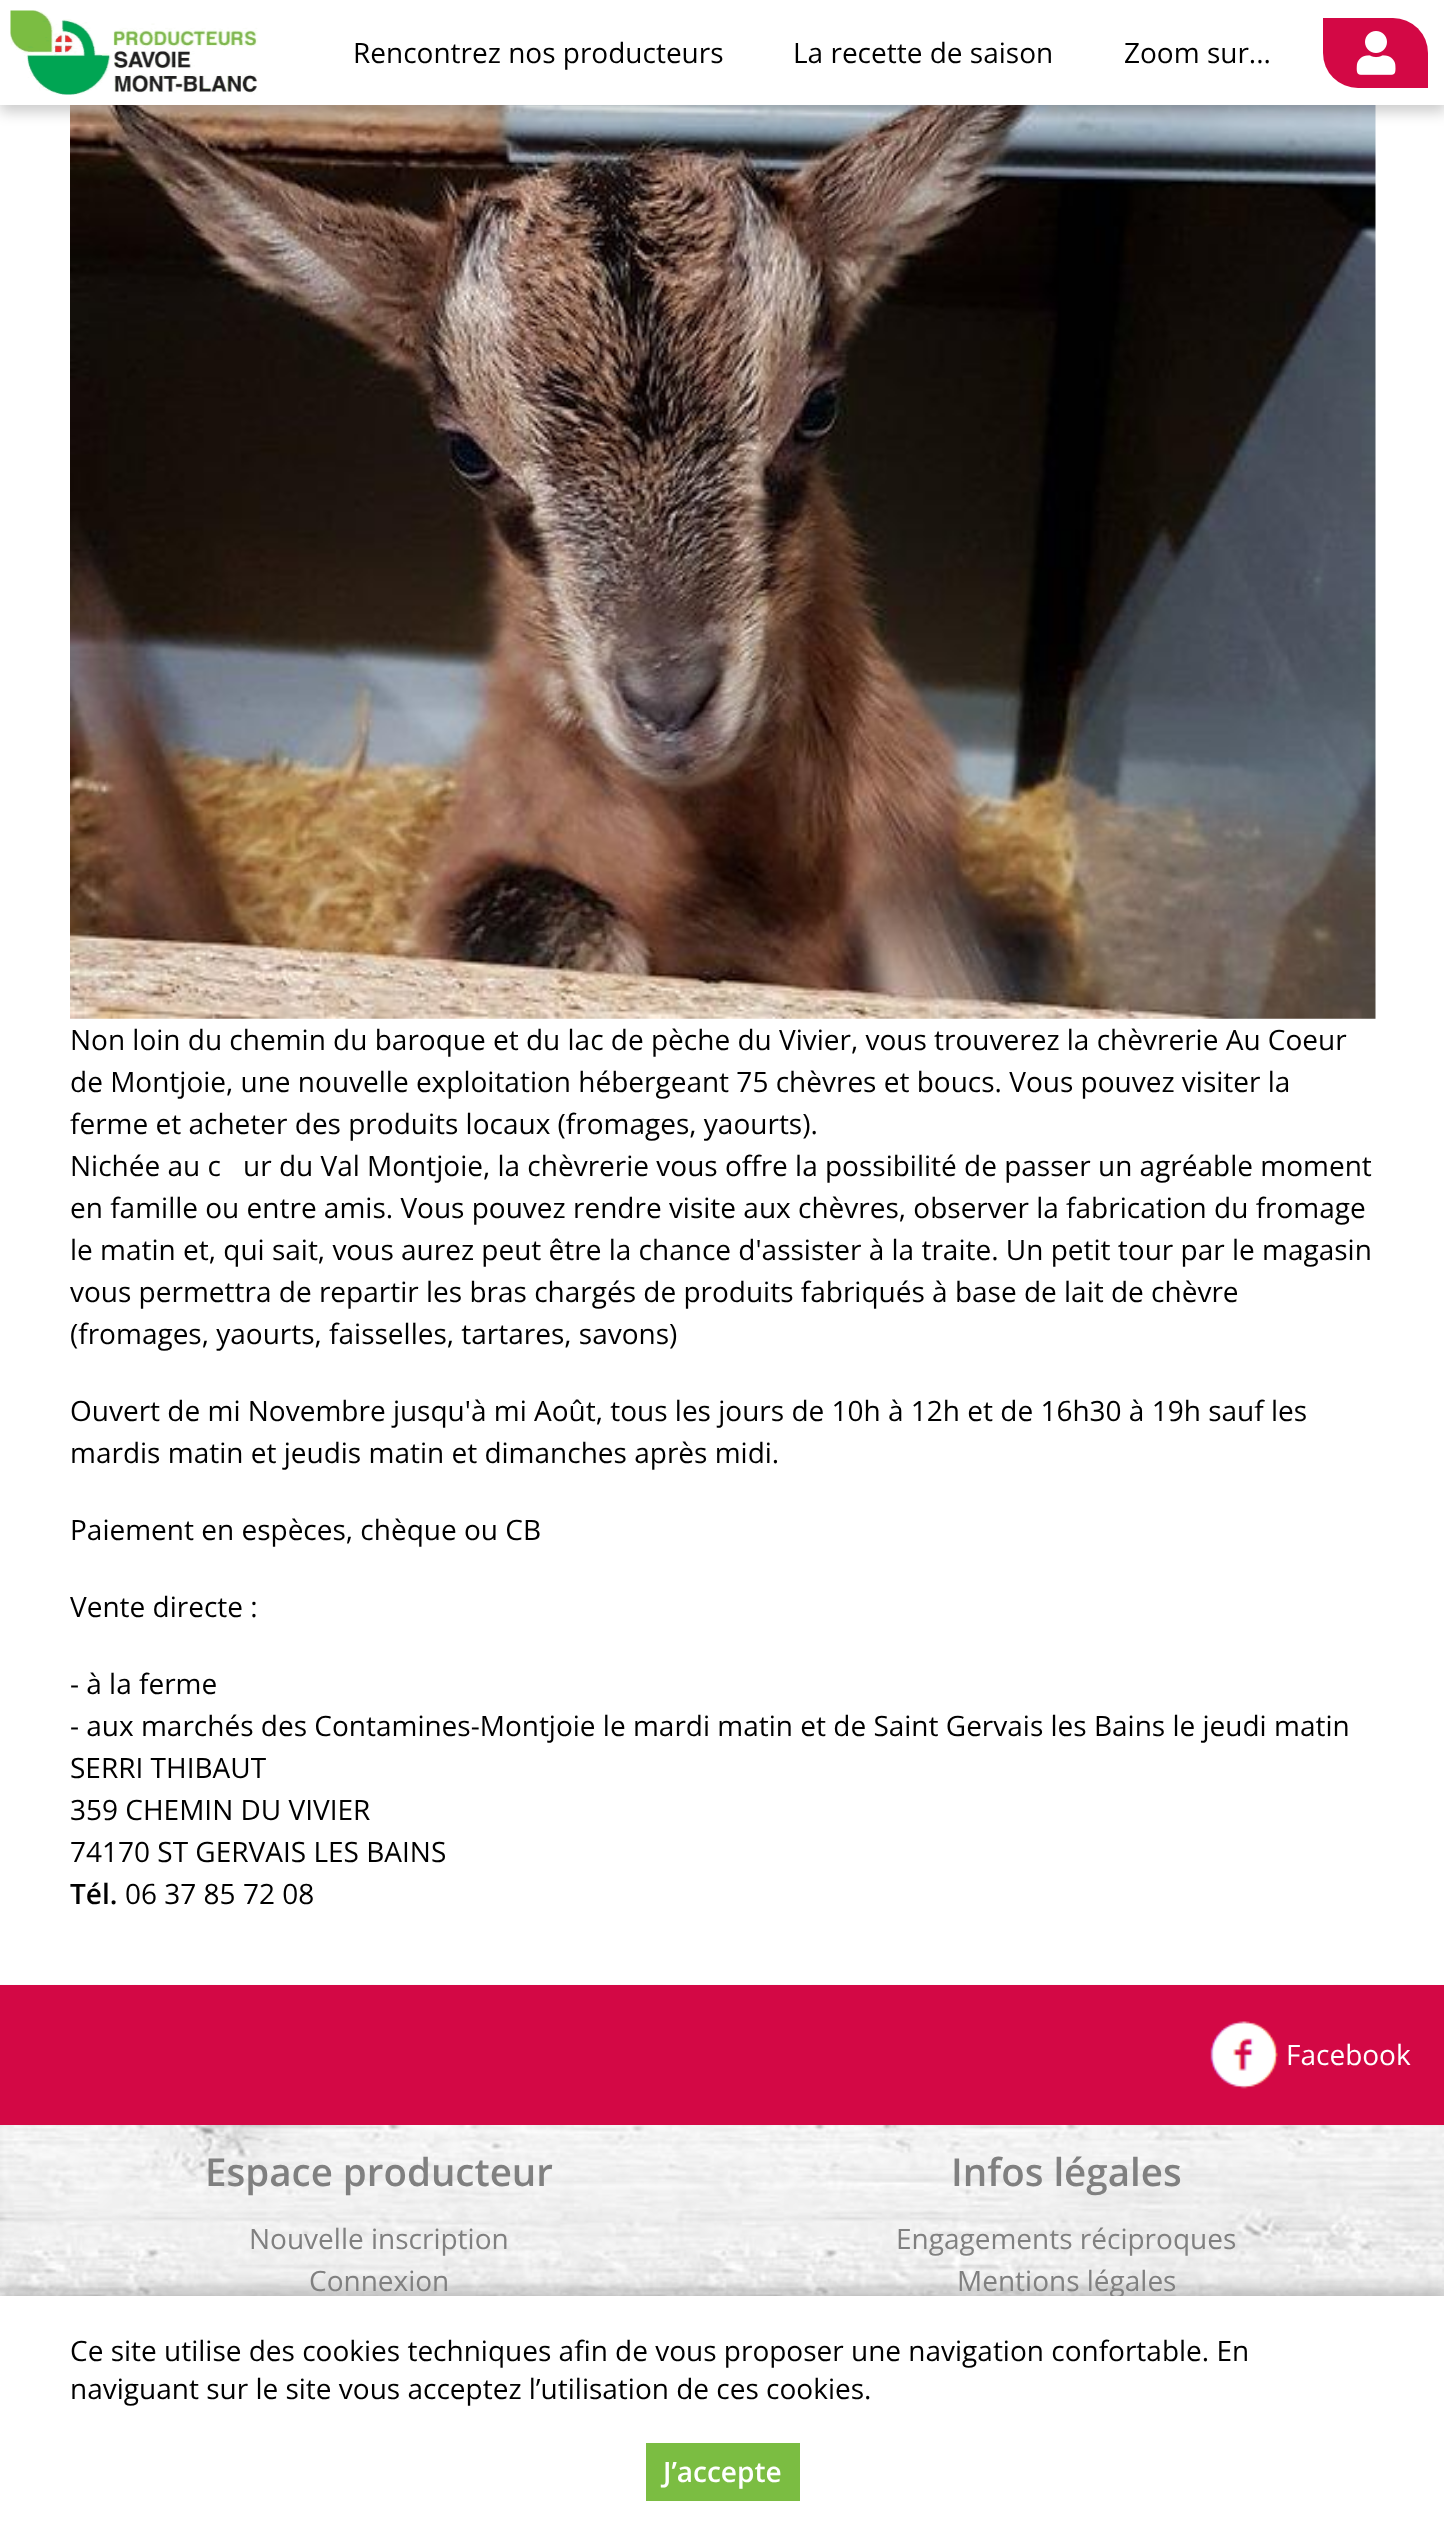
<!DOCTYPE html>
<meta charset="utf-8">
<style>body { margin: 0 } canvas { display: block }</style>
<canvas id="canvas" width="1444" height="2535"></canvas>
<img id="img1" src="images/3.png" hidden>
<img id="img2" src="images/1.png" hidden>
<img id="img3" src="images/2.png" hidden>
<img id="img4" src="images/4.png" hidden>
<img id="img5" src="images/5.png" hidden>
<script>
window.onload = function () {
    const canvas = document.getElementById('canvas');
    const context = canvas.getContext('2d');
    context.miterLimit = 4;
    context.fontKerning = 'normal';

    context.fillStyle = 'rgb(255, 255, 255)';
    context.fillRect(0, 0, 1444, 2535);
    context.drawImage(document.getElementById('img1'), 70, 105, 1306, 914);
    context.fillStyle = 'rgba(0, 0, 0, 0.2)';
    context.filter = 'blur(7px)';
    context.beginPath();
    context.rect(0, 7, 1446, 105);
    context.fill();
    context.filter = 'none';
    context.fillStyle = 'rgb(255, 255, 255)';
    context.fillRect(0, 0, 1444, 105);
    context.drawImage(document.getElementById('img2'), 10, 10, 248, 85);
    context.fillStyle = 'rgb(211, 8, 69)';
    context.beginPath();
    context.roundRect(1323, 18, 105, 70, [0, 35, 0, 35]);
    context.fill();
    context.drawImage(document.getElementById('img3'), 1356, 31, 40, 44);
    context.drawImage(document.getElementById('img4'), 0, 1984, 1444, 312);
    context.fillRect(0, 1985, 1444, 140);
    context.drawImage(document.getElementById('img5'), 1210, 2021, 68, 68);
    context.fillStyle = 'rgba(0, 0, 0, 0.2)';
    context.filter = 'blur(7px)';
    context.beginPath();
    context.rect(0, 2289, 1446, 240);
    context.fill();
    context.filter = 'none';
    context.font = '28px Open Sans';
    context.fillStyle = 'rgb(0, 0, 0)';
    context.fillText('Rencontrez nos producteurs', 353, 63);
    context.fillText('La recette de saison', 793, 63);
    context.fillText('Zoom sur...', 1124, 63);
    context.fillText('Non loin du chemin du baroque et du lac de pèche du Vivier, vous trouverez la chèvrerie Au Coeur', 70, 1050);
    context.fillText('de Montjoie, une nouvelle exploitation hébergeant 75 chèvres et boucs. Vous pouvez visiter la', 70, 1092);
    context.fillText('ferme et acheter des produits locaux (fromages, yaourts).', 70, 1134);
    context.fillText('Nichée au c', 70, 1176);
    context.fillText('ur du Val Montjoie, la chèvrerie vous offre la possibilité de passer un agréable moment', 243, 1176);
    context.fillText('en famille ou entre amis. Vous pouvez rendre visite aux chèvres, observer la fabrication du fromage', 70, 1218);
    context.fillText('le matin et, qui sait, vous aurez peut être la chance d\'assister à la traite. Un petit tour par le magasin', 70, 1260);
    context.fillText('vous permettra de repartir les bras chargés de produits fabriqués à base de lait de chèvre', 70, 1302);
    context.fillText('(fromages, yaourts, faisselles, tartares, savons)', 70, 1344);
    context.fillText('Ouvert de mi Novembre jusqu\'à mi Août, tous les jours de 10h à 12h et de 16h30 à 19h sauf les', 70, 1421);
    context.fillText('mardis matin et jeudis matin et dimanches après midi.', 70, 1463);
    context.fillText('Paiement en espèces, chèque ou CB', 70, 1540);
    context.fillText('Vente directe :', 70, 1617);
    context.fillText('- à la ferme', 70, 1694);
    context.fillText('- aux marchés des Contamines-Montjoie le mardi matin et de Saint Gervais les Bains le jeudi matin', 70, 1736);
    context.fillText('SERRI THIBAUT', 70, 1778);
    context.fillText('359 CHEMIN DU VIVIER', 70, 1820);
    context.fillText('74170 ST GERVAIS LES BAINS', 70, 1862);
    context.font = '600 28px Open Sans';
    context.fillText('Tél.', 70, 1904);
    context.font = '28px Open Sans';
    context.fillText('06 37 85 72 08', 125, 1904);
    context.fillStyle = 'rgb(255, 255, 255)';
    context.fillText('Facebook', 1286, 2065);
    context.font = '600 38.5px Open Sans';
    context.fillStyle = 'rgb(128, 128, 128)';
    context.fillText('Espace producteur', 205, 2186);
    context.font = '28px Open Sans';
    context.fillText('Nouvelle inscription', 249, 2249);
    context.fillText('Connexion', 309, 2291);
    context.font = '600 38.5px Open Sans';
    context.fillText('Infos légales', 951, 2186);
    context.font = '28px Open Sans';
    context.fillText('Engagements réciproques', 896, 2249);
    context.fillText('Mentions légales', 957, 2291);
    context.fillStyle = 'rgb(255, 255, 255)';
    context.fillRect(0, 2296, 1444, 239);
    context.fillStyle = 'rgb(0, 0, 0)';
    context.fillText('Ce site utilise des cookies techniques afin de vous proposer une navigation confortable. En', 70, 2361);
    context.fillText('naviguant sur le site vous acceptez l’utilisation de ces cookies.', 70, 2399);
    context.fillStyle = 'rgb(123, 189, 66)';
    context.fillRect(646, 2443, 154, 58);
    context.font = '600 28px Open Sans';
    context.fillStyle = 'rgb(255, 255, 255)';
    context.fillText('J’accepte', 663, 2482);
};
</script>
